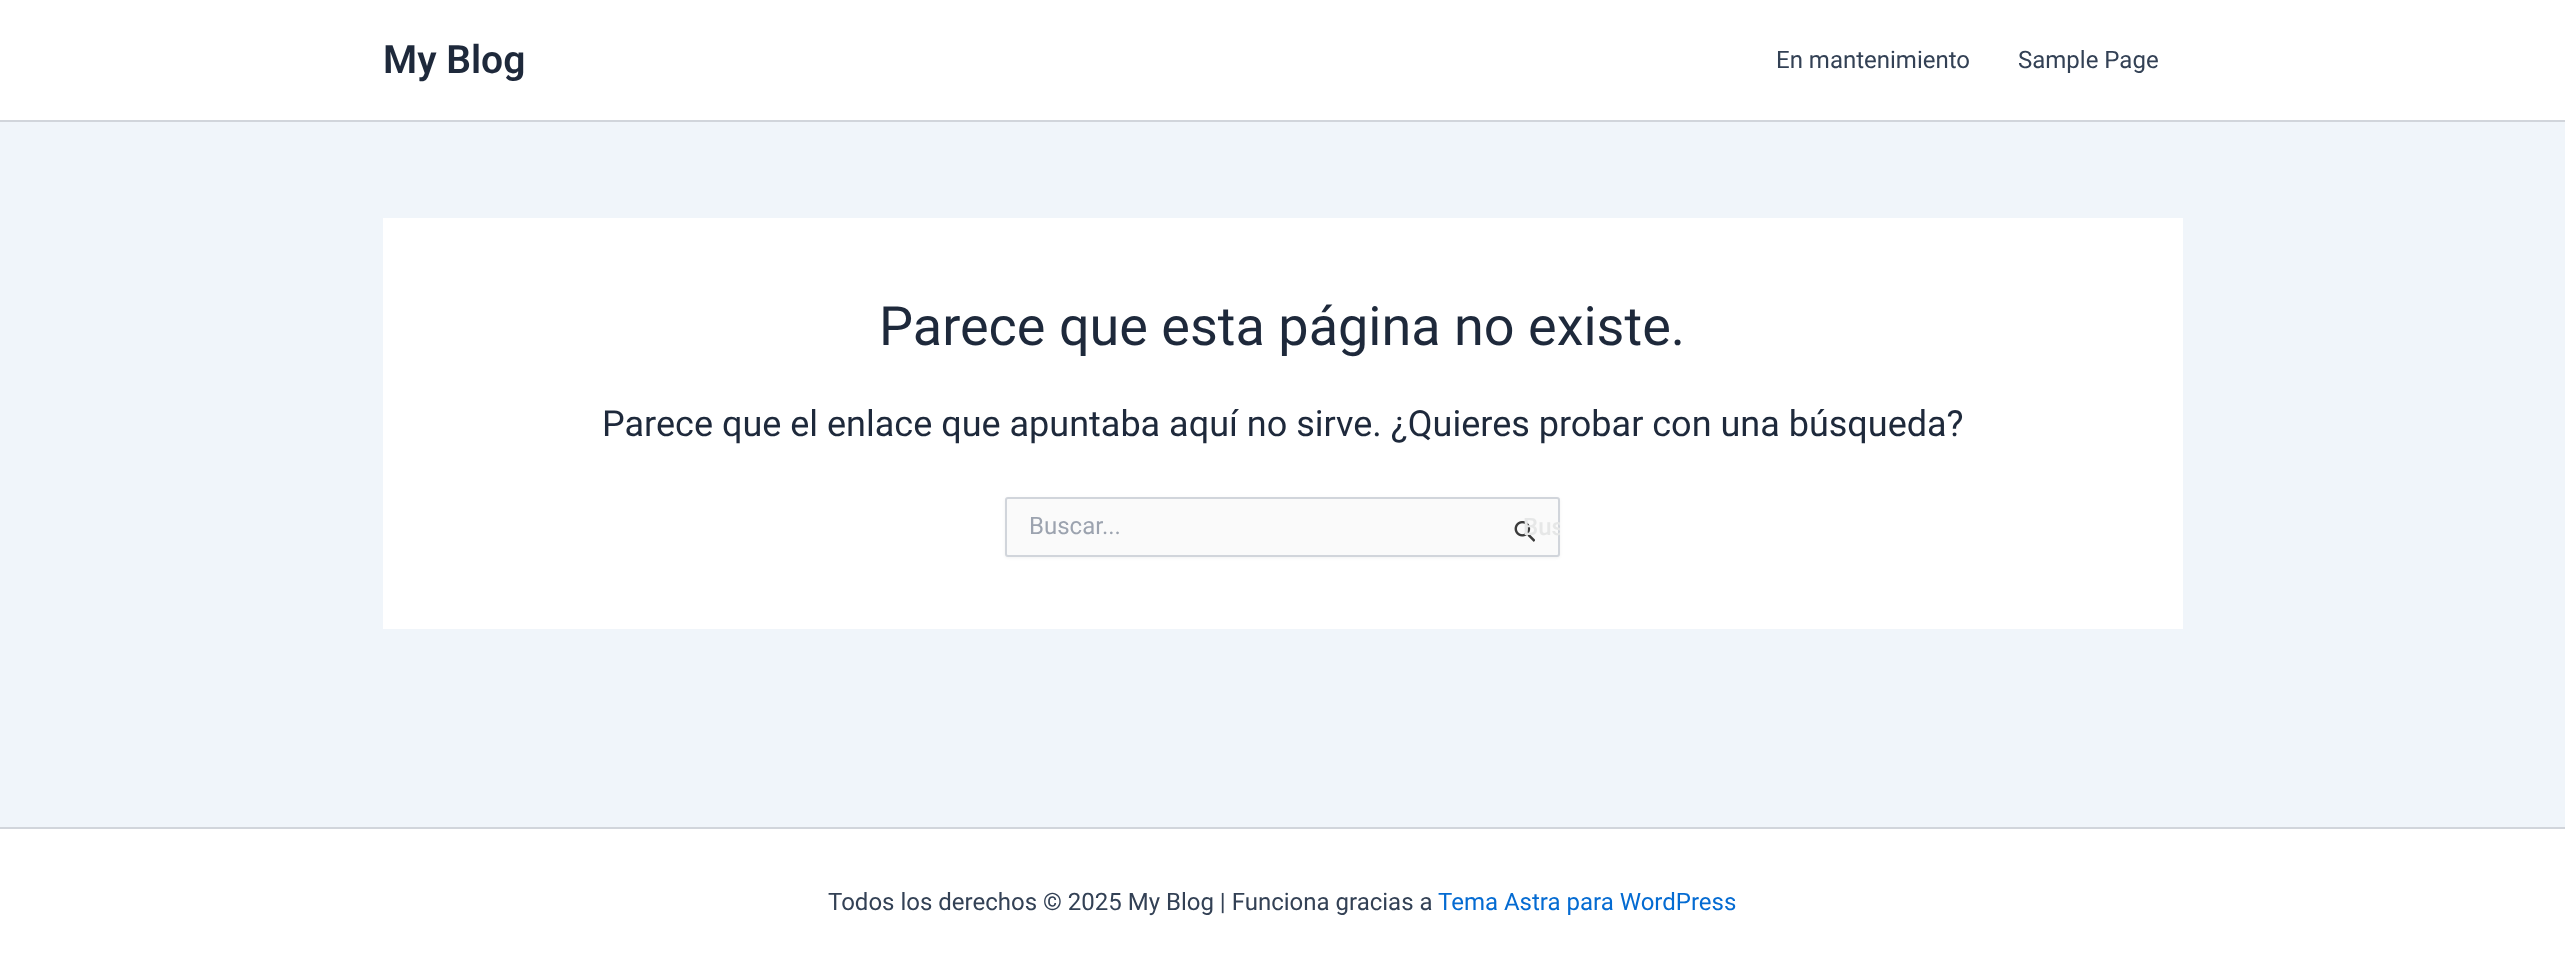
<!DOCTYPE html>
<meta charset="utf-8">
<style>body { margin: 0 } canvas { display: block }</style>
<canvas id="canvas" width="2565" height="977"></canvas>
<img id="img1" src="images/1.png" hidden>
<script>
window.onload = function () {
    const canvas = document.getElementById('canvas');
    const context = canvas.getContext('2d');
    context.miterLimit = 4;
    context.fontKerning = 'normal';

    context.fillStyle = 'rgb(240, 245, 250)';
    context.fillRect(0, 0, 2565, 977);
    context.fillStyle = 'rgb(255, 255, 255)';
    context.fillRect(0, 0, 2565, 120);
    context.fillStyle = 'rgb(209, 213, 219)';
    context.fillRect(0, 120, 2565, 2);
    context.fillStyle = 'rgb(255, 255, 255)';
    context.fillRect(383, 218, 1800, 411);
    context.fillStyle = 'rgba(0, 0, 0, 0.05)';
    context.filter = 'blur(1.5px)';
    context.beginPath();
    context.roundRect(1005, 498, 555, 60, 3);
    context.fill();
    context.filter = 'none';
    context.fillStyle = 'rgb(250, 250, 250)';
    context.beginPath();
    context.roundRect(1006, 498, 553, 58, 2);
    context.fill();
    context.strokeStyle = 'rgb(209, 213, 219)';
    context.lineWidth = 2;
    context.stroke();
    context.drawImage(document.getElementById('img1'), 1514, 521, 21, 21);
    context.fillStyle = 'rgb(255, 255, 255)';
    context.fillRect(0, 829, 2565, 148);
    context.fillStyle = 'rgb(209, 213, 219)';
    context.fillRect(0, 827, 2565, 2);
    context.font = '600 39px Roboto';
    context.fillStyle = 'rgb(30, 41, 59)';
    context.fillText('My Blog', 383, 73);
    context.font = '24px Roboto';
    context.fillStyle = 'rgb(51, 65, 85)';
    context.fillText('En mantenimiento', 1776, 68);
    context.fillText('Sample Page', 2018, 68);
    context.font = '54px Roboto';
    context.fillStyle = 'rgb(30, 41, 59)';
    context.fillText('Parece que esta página no existe.', 879, 345);
    context.font = '36px Roboto';
    context.fillText('Parece que el enlace que apuntaba aquí no sirve. ¿Quieres probar con una búsqueda?', 602, 436);
    context.font = '24px Roboto';
    context.fillStyle = 'rgb(156, 163, 175)';
    context.fillText('Buscar...', 1029, 534);
    context.save();
    context.beginPath();
    context.roundRect(1493, 497, 67, 63, 3);
    context.clip();
    context.font = '500 24px Roboto';
    context.fillStyle = 'rgb(230, 231, 231)';
    context.fillText('Bus', 1523, 535);
    context.restore();
    context.fillStyle = 'rgb(51, 65, 85)';
    context.fillText('Todos los derechos © 2025 My Blog | Funciona gracias a', 828, 910);
    context.fillStyle = 'rgb(4, 107, 210)';
    context.fillText('Tema Astra para WordPress', 1438, 910);
};
</script>
